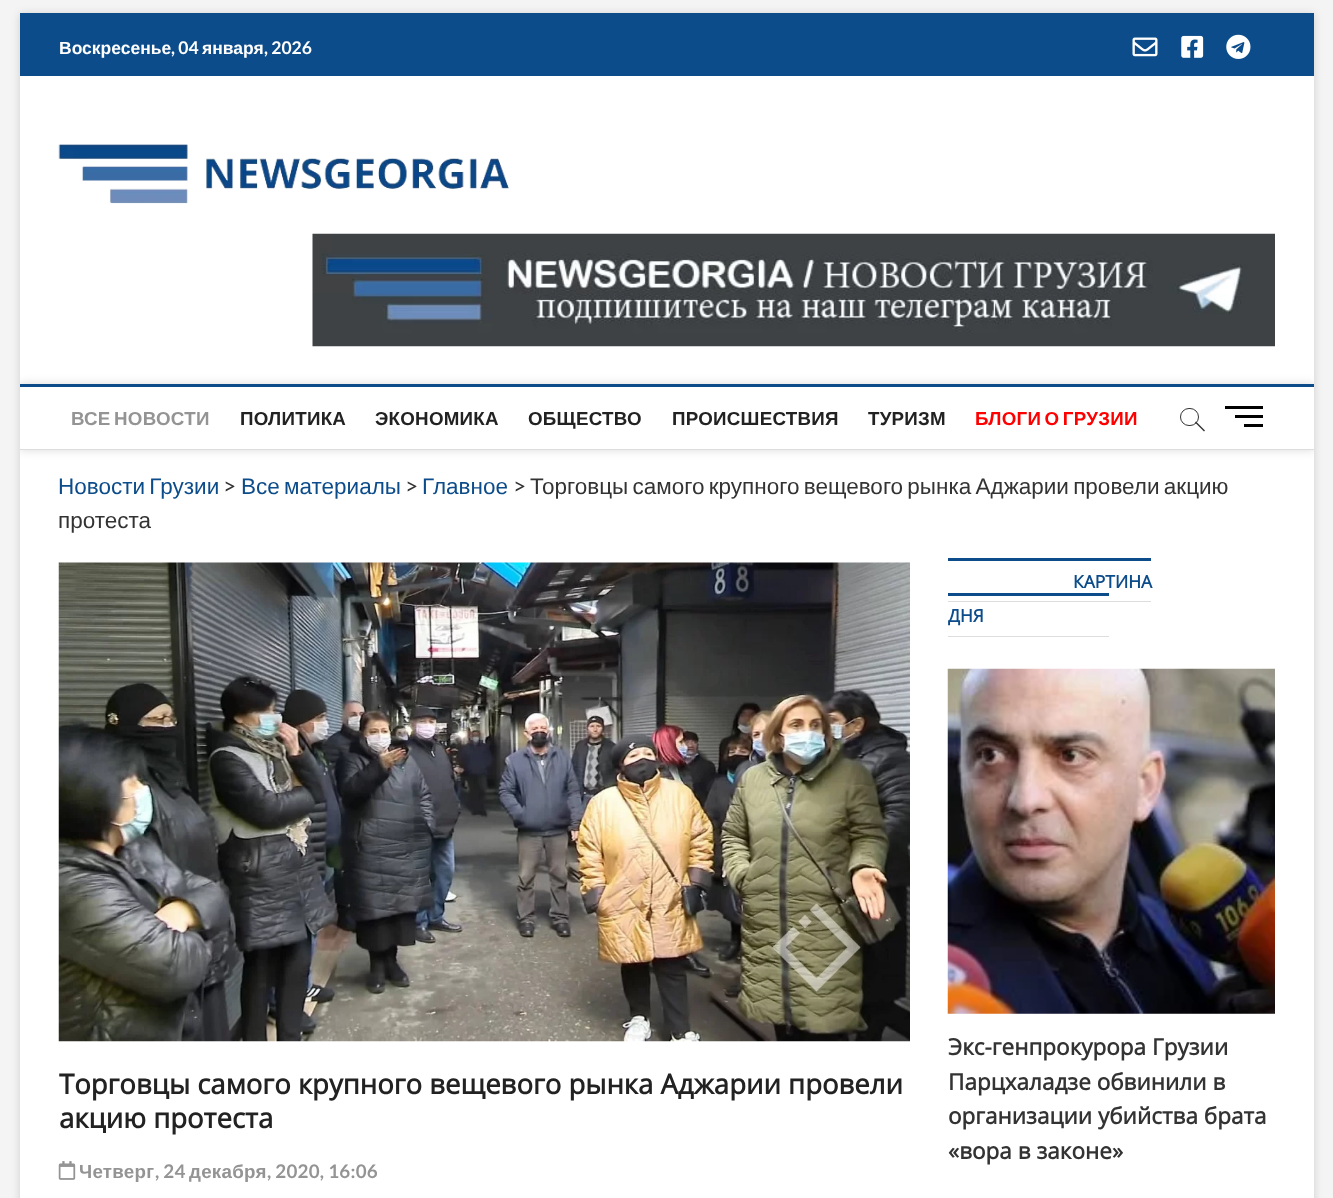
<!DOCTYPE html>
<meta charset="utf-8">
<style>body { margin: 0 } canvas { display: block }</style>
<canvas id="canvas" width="1333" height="1198"></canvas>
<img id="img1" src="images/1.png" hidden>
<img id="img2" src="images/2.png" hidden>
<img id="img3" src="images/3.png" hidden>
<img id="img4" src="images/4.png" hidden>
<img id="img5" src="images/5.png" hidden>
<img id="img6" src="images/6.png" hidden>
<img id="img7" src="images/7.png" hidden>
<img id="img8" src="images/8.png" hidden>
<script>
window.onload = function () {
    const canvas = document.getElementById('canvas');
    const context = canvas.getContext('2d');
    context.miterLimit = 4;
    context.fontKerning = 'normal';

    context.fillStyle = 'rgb(244, 244, 244)';
    context.fillRect(0, 0, 1333, 1198);
    context.fillStyle = 'rgba(0, 0, 0, 0.15)';
    context.filter = 'blur(4px)';
    context.beginPath();
    context.rect(20, 14, 1294, 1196);
    context.fill();
    context.filter = 'none';
    context.fillStyle = 'rgb(255, 255, 255)';
    context.fillRect(20, 76, 1294, 1122);
    context.fillStyle = 'rgb(12, 76, 138)';
    context.fillRect(20, 13, 1294, 63);
    context.drawImage(document.getElementById('img1'), 1132, 37, 26, 20);
    context.drawImage(document.getElementById('img2'), 1181, 35, 23, 23);
    context.drawImage(document.getElementById('img3'), 1226, 34, 25, 25);
    context.drawImage(document.getElementById('img4'), 58, 144, 451, 60);
    context.drawImage(document.getElementById('img5'), 312, 233, 963, 114);
    context.save();
    context.beginPath();
    context.rect(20, 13, 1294, 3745);
    context.clip();
    context.beginPath();
    context.moveTo(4, 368);
    context.lineTo(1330, 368);
    context.lineTo(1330, 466);
    context.lineTo(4, 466);
    context.closePath();
    context.moveTo(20, 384);
    context.lineTo(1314, 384);
    context.lineTo(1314, 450);
    context.lineTo(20, 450);
    context.closePath();
    context.clip('evenodd');
    context.fillStyle = 'rgba(0, 0, 0, 0.15)';
    context.filter = 'blur(5px)';
    context.beginPath();
    context.rect(20, 384, 1294, 66);
    context.fill();
    context.filter = 'none';
    context.restore();
    context.fillRect(20, 384, 1294, 3);
    context.fillStyle = 'rgb(221, 221, 221)';
    context.fillRect(20, 449, 1294, 1);
    context.beginPath();
    context.roundRect(1180.5, 408.5, 18, 17, 8.5);
    context.strokeStyle = 'rgb(51, 51, 51)';
    context.stroke();
    context.fillStyle = 'rgb(51, 51, 51)';
    context.beginPath();
    context.moveTo(1195, 422.5);
    context.lineTo(1196, 421.5);
    context.lineTo(1205, 430.5);
    context.lineTo(1204, 431.5);
    context.closePath();
    context.fill();
    context.fillStyle = 'rgb(0, 0, 0)';
    context.fillRect(1235, 415, 28, 3);
    context.fillRect(1225, 406, 38, 3);
    context.fillRect(1244, 424, 19, 3);
    context.drawImage(document.getElementById('img6'), 58, 562, 852, 480);
    context.drawImage(document.getElementById('img7'), 58, 1161, 18, 19);
    context.fillStyle = 'rgb(12, 76, 138)';
    context.fillRect(948, 558, 203, 3);
    context.fillRect(948, 593, 161, 3);
    context.fillStyle = 'rgb(221, 221, 221)';
    context.fillRect(948, 601, 203, 1);
    context.fillRect(948, 636, 161, 1);
    context.drawImage(document.getElementById('img8'), 947, 668, 328, 346);
    context.font = 'bold 17.5px Liberation Sans';
    context.fillStyle = 'rgb(255, 255, 255)';
    context.fillText('Воскресенье', 59, 54);
    context.font = 'bold 17.5px Lato';
    context.fillText(', 04', 171, 54);
    context.font = 'bold 17.5px Liberation Sans';
    context.fillText('января', 202, 54);
    context.font = 'bold 17.5px Lato';
    context.fillText(', 2026', 264, 54);
    context.letterSpacing = '0.25px';
    context.wordSpacing = '-2px';
    context.font = 'bold 18.75px Liberation Sans';
    context.fillStyle = 'rgb(148, 148, 148)';
    context.fillText('ВСЕ НОВОСТИ', 71, 425);
    context.wordSpacing = '0px';
    context.fillStyle = 'rgb(34, 34, 34)';
    context.fillText('ПОЛИТИКА', 240, 425);
    context.fillText('ЭКОНОМИКА', 375, 425);
    context.fillText('ОБЩЕСТВО', 528, 425);
    context.fillText('ПРОИСШЕСТВИЯ', 672, 425);
    context.fillText('ТУРИЗМ', 868, 425);
    context.wordSpacing = '-2px';
    context.fillStyle = 'rgb(255, 0, 0)';
    context.fillText('БЛОГИ О ГРУЗИИ', 975, 425);
    context.letterSpacing = '0px';
    context.font = '22.5px Liberation Sans';
    context.fillStyle = 'rgb(12, 76, 138)';
    context.fillText('Новости Грузии', 58, 494);
    context.wordSpacing = '0px';
    context.font = '22.5px Lato';
    context.fillStyle = 'rgb(51, 51, 51)';
    context.fillText('>', 223, 494);
    context.wordSpacing = '-2px';
    context.font = '22.5px Liberation Sans';
    context.fillStyle = 'rgb(12, 76, 138)';
    context.fillText('Все материалы', 241, 494);
    context.wordSpacing = '0px';
    context.font = '22.5px Lato';
    context.fillStyle = 'rgb(51, 51, 51)';
    context.fillText('>', 405, 494);
    context.font = '22.5px Liberation Sans';
    context.fillStyle = 'rgb(12, 76, 138)';
    context.fillText('Главное', 422, 494);
    context.font = '22.5px Lato';
    context.fillStyle = 'rgb(51, 51, 51)';
    context.fillText('>', 513, 494);
    context.wordSpacing = '-2px';
    context.font = '22.5px Liberation Sans';
    context.fillText('Торговцы самого крупного вещевого рынка Аджарии провели акцию', 530, 494);
    context.wordSpacing = '0px';
    context.fillText('протеста', 58, 528);
    context.font = 'bold 27.5px Open Sans';
    context.fillStyle = 'rgb(34, 34, 34)';
    context.fillText('Торговцы самого крупного вещевого рынка Аджарии провели', 59, 1094);
    context.fillText('акцию протеста', 59, 1128);
    context.letterSpacing = '0.25px';
    context.font = 'bold 18.75px Liberation Sans';
    context.fillStyle = 'rgb(148, 148, 148)';
    context.fillText('Четверг', 79, 1178);
    context.font = 'bold 18.75px Lato';
    context.fillText(', 24', 155, 1178);
    context.font = 'bold 18.75px Liberation Sans';
    context.fillText('декабря', 189, 1178);
    context.font = 'bold 18.75px Lato';
    context.fillText(', 2020, 16:06', 267, 1178);
    context.letterSpacing = '0px';
    context.font = 'bold 17.5px Open Sans';
    context.fillStyle = 'rgb(12, 76, 138)';
    context.fillText('КАРТИНА', 1073, 588);
    context.fillText('ДНЯ', 948, 622);
    context.font = 'bold 22.5px Open Sans';
    context.fillStyle = 'rgb(51, 51, 51)';
    context.fillText('Экс-генпрокурора Грузии', 948, 1055);
    context.fillText('Парцхаладзе обвинили в', 948, 1090);
    context.fillText('организации убийства брата', 948, 1124);
    context.fillText('«вора в законе»', 948, 1159);
};
</script>
